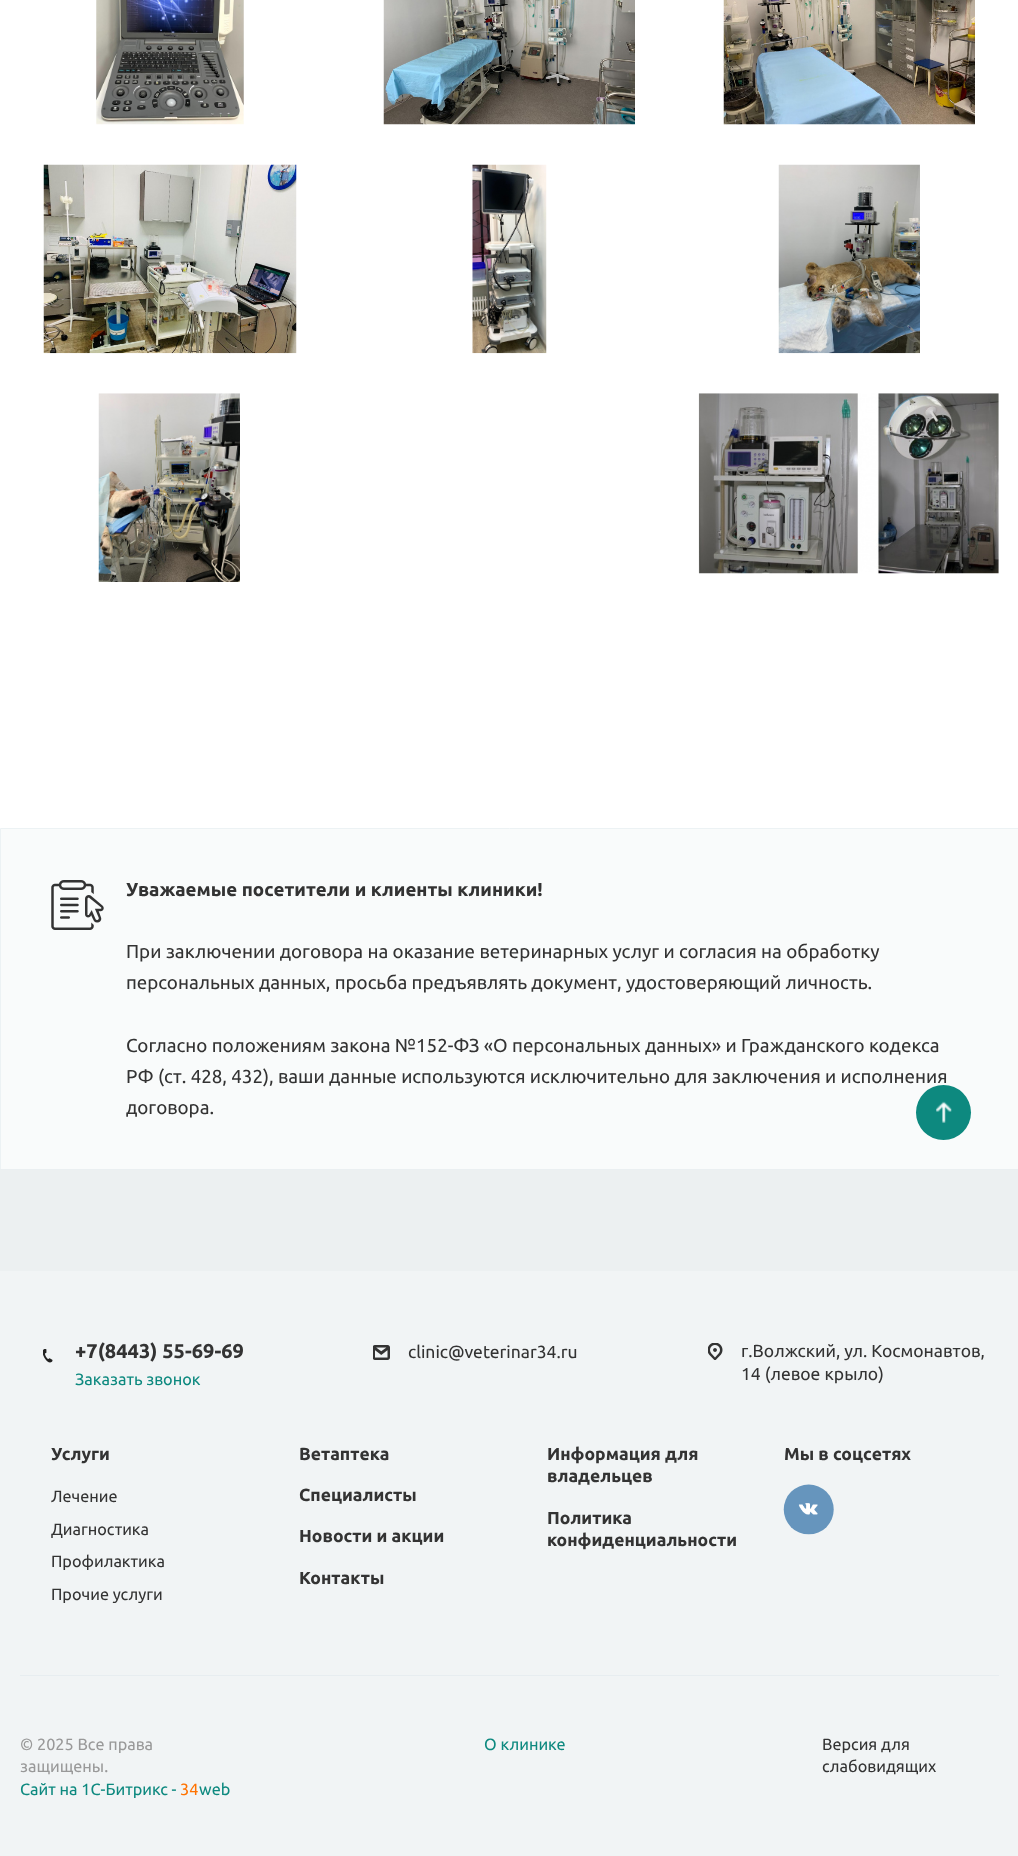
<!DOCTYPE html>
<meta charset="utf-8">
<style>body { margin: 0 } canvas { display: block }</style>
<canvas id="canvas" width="1018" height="1856"></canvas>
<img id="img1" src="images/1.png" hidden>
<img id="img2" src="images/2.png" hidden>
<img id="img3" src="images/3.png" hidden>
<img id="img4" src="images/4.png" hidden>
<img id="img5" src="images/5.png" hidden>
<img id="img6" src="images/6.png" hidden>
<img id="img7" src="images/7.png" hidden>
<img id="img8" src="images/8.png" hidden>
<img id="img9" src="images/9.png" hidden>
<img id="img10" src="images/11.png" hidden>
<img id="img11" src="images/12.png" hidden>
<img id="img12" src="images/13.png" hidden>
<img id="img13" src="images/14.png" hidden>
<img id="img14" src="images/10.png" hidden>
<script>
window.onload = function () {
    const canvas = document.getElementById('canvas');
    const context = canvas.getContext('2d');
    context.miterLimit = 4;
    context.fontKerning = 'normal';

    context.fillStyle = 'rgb(255, 255, 255)';
    context.fillRect(0, 0, 1018, 1856);
    context.drawImage(document.getElementById('img1'), 96, 0, 148, 125);
    context.drawImage(document.getElementById('img2'), 383, 0, 252, 125);
    context.drawImage(document.getElementById('img3'), 723, 0, 252, 125);
    context.drawImage(document.getElementById('img4'), 43, 164, 254, 190);
    context.drawImage(document.getElementById('img5'), 472, 164, 75, 190);
    context.drawImage(document.getElementById('img6'), 778, 164, 142, 190);
    context.drawImage(document.getElementById('img7'), 98, 393, 142, 189);
    context.drawImage(document.getElementById('img8'), 698, 393, 301, 181);
    context.fillStyle = 'rgb(249, 251, 251)';
    context.beginPath();
    context.rect(0.5, 828.5, 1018, 341);
    context.fill();
    context.strokeStyle = 'rgb(236, 242, 244)';
    context.stroke();
    context.drawImage(document.getElementById('img9'), 51, 880, 53, 50);
    context.fillStyle = 'rgb(241, 244, 245)';
    context.fillRect(0, 1271, 1018, 585);
    context.fillStyle = 'rgb(234, 239, 241)';
    context.fillRect(0, 1169, 1018, 1);
    context.fillStyle = 'rgb(236, 240, 241)';
    context.fillRect(0, 1170, 1018, 101);
    context.drawImage(document.getElementById('img10'), 43, 1349, 10, 14);
    context.drawImage(document.getElementById('img11'), 373, 1345, 17, 15);
    context.drawImage(document.getElementById('img12'), 708, 1343, 15, 17);
    context.drawImage(document.getElementById('img13'), 783, 1484, 51, 51);
    context.fillStyle = 'rgb(231, 237, 240)';
    context.fillRect(20, 1675, 979, 1);
    context.font = 'bold 18.75px Ubuntu';
    context.fillStyle = 'rgb(51, 51, 51)';
    context.fillText('Уважаемые посетители и клиенты клиники!', 126, 896);
    context.font = '18.75px Ubuntu';
    context.fillText('При заключении договора на оказание ветеринарных услуг и согласия на обработку', 126, 958);
    context.fillText('персональных данных, просьба предъявлять документ, удостоверяющий личность.', 126, 989);
    context.fillText('Согласно положениям закона №152-ФЗ «О персональных данных» и Гражданского кодекса', 126, 1052);
    context.fillText('РФ (ст. 428, 432), ваши данные используются исключительно для заключения и исполнения', 126, 1083);
    context.fillText('договора.', 126, 1114);
    context.fillStyle = 'rgb(13, 137, 127)';
    context.beginPath();
    context.arc(943.5, 1112.5, 27.5, 0, 2 * Math.PI);
    context.fill();
    context.drawImage(document.getElementById('img14'), 936, 1101, 16, 22);
    context.font = 'bold 20px Ubuntu';
    context.fillStyle = 'rgb(51, 51, 51)';
    context.fillText('+7(8443) 55-69-69', 75, 1358);
    context.font = '16.25px Ubuntu';
    context.fillStyle = 'rgb(13, 137, 127)';
    context.fillText('Заказать звонок', 75, 1385);
    context.font = '17.5px Ubuntu';
    context.fillStyle = 'rgb(51, 51, 51)';
    context.fillText('clinic@veterinar34.ru', 408, 1358);
    context.fillText('г.Волжский, ул. Космонавтов,', 741, 1357);
    context.fillText('14 (левое крыло)', 741, 1380);
    context.font = 'bold 17.5px Ubuntu';
    context.fillText('Услуги', 51, 1460);
    context.font = '16.25px Ubuntu';
    context.fillText('Лечение', 51, 1502);
    context.fillText('Диагностика', 51, 1535);
    context.fillText('Профилактика', 51, 1567);
    context.fillText('Прочие услуги', 51, 1600);
    context.font = 'bold 17.5px Ubuntu';
    context.fillText('Ветаптека', 299, 1460);
    context.fillText('Специалисты', 299, 1501);
    context.fillText('Новости и акции', 299, 1542);
    context.fillText('Контакты', 299, 1584);
    context.fillText('Информация для', 547, 1460);
    context.fillText('владельцев', 547, 1482);
    context.fillText('Политика', 547, 1524);
    context.fillText('конфиденциальности', 547, 1546);
    context.fillText('Мы в соцсетях', 784, 1460);
    context.font = '16.25px Ubuntu';
    context.fillStyle = 'rgb(153, 153, 153)';
    context.fillText('© 2025 Все права', 20, 1750);
    context.fillText('защищены.', 20, 1772);
    context.fillStyle = 'rgb(13, 137, 127)';
    context.fillText('Сайт на 1С-Битрикс -', 20, 1795);
    context.fillStyle = 'rgb(255, 114, 0)';
    context.fillText('34', 180, 1795);
    context.fillStyle = 'rgb(13, 137, 127)';
    context.fillText('web', 199, 1795);
    context.fillText('О клинике', 484, 1750);
    context.fillStyle = 'rgb(51, 51, 51)';
    context.fillText('Версия для', 822, 1750);
    context.fillText('слабовидящих', 822, 1772);
};
</script>
